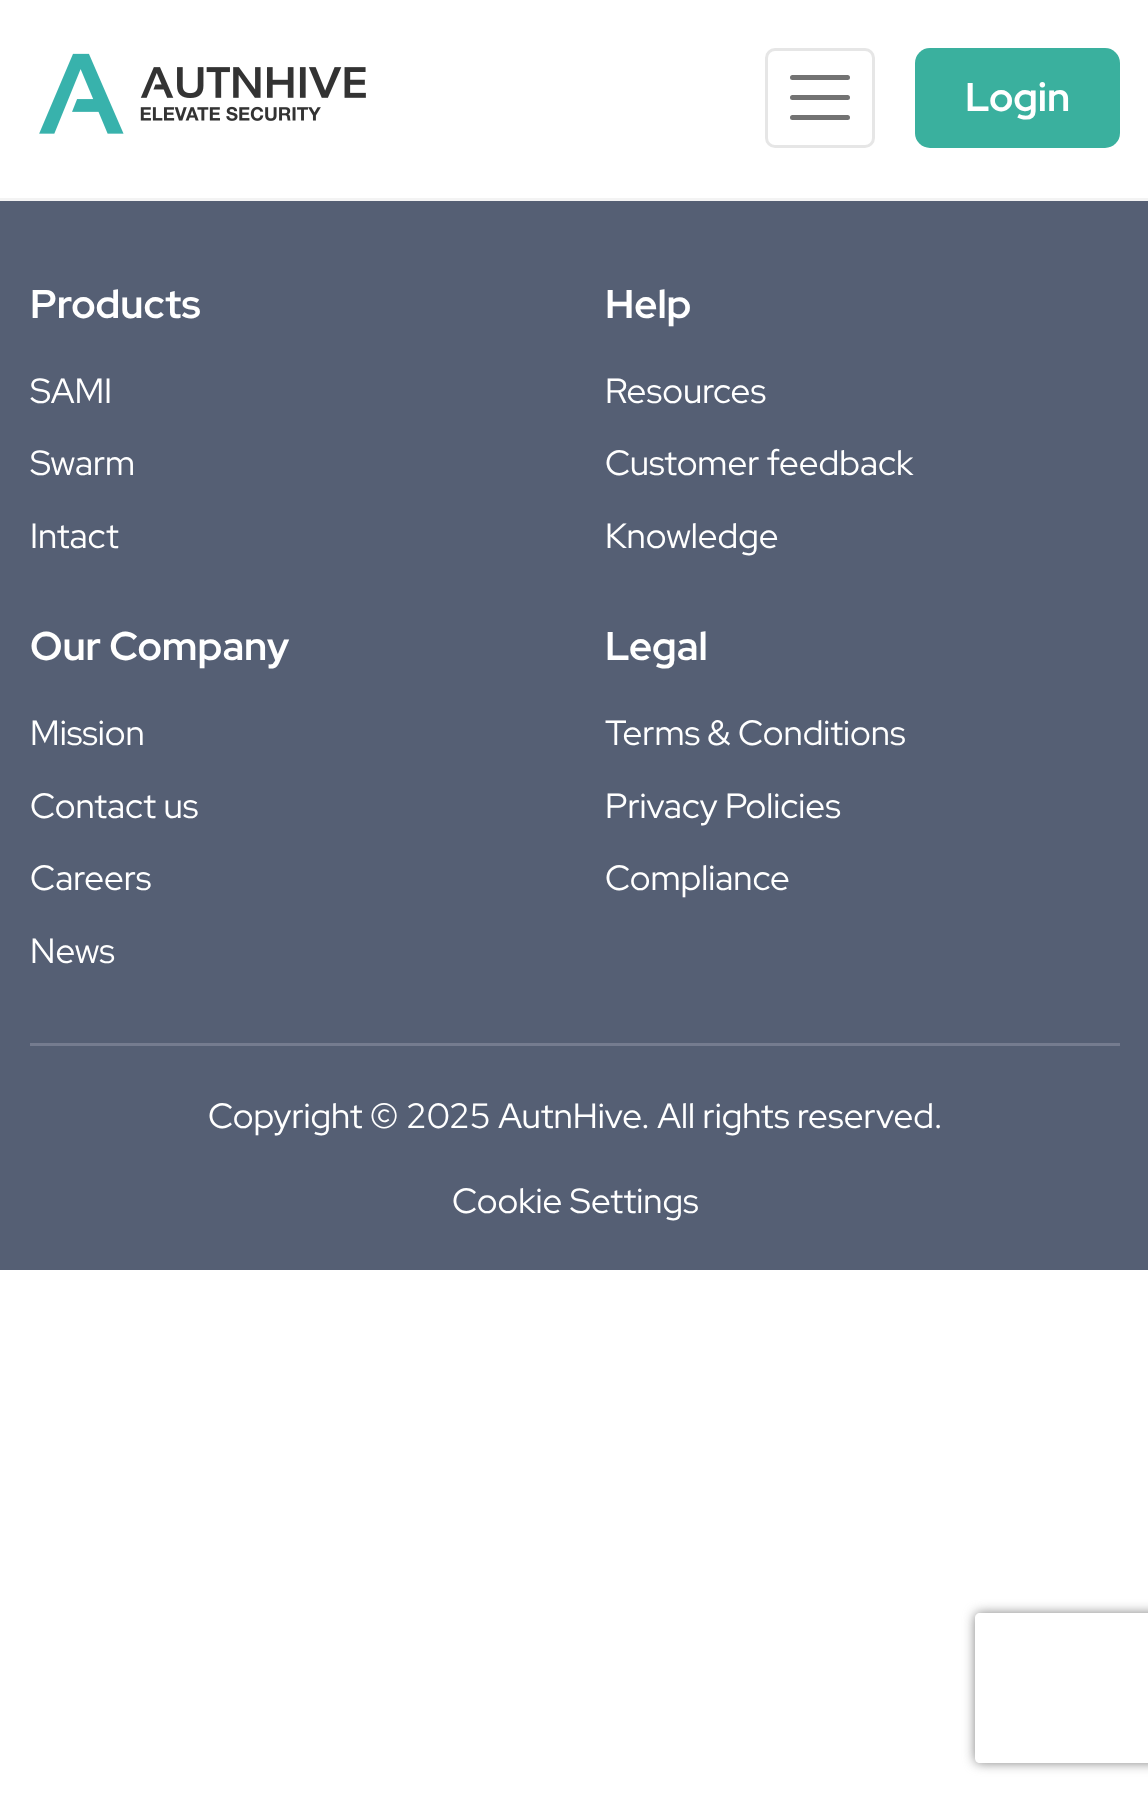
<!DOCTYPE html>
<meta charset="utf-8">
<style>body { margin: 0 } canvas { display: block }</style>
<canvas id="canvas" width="1148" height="1797"></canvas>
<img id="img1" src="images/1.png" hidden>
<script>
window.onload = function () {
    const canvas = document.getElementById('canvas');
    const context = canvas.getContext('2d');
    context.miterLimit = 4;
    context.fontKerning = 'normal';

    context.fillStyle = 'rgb(255, 255, 255)';
    context.fillRect(0, 0, 1148, 1797);
    context.fillStyle = 'rgb(243, 243, 243)';
    context.fillRect(0, 198, 1148, 3);
    context.drawImage(document.getElementById('img1'), 39, 53, 327, 81);
    context.beginPath();
    context.roundRect(766.5, 49.5, 107, 97, 8.5);
    context.strokeStyle = 'rgb(230, 230, 230)';
    context.lineWidth = 3;
    context.stroke();
    context.beginPath();
    context.moveTo(792.5, 77.5);
    context.lineTo(847.5, 77.5);
    context.moveTo(792.5, 97.5);
    context.lineTo(847.5, 97.5);
    context.moveTo(792.5, 117.5);
    context.lineTo(847.5, 117.5);
    context.strokeStyle = 'rgb(115, 115, 115)';
    context.lineWidth = 5;
    context.lineCap = 'round';
    context.stroke();
    context.fillStyle = 'rgb(58, 176, 158)';
    context.beginPath();
    context.roundRect(915, 48, 205, 100, 15);
    context.fill();
    context.fillStyle = 'rgb(85, 95, 116)';
    context.fillRect(0, 201, 1148, 1069);
    context.fillStyle = 'rgb(117, 124, 143)';
    context.fillRect(30, 1043, 1090, 3);
    context.save();
    context.beginPath();
    context.moveTo(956, 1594);
    context.lineTo(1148, 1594);
    context.lineTo(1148, 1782);
    context.lineTo(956, 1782);
    context.closePath();
    context.moveTo(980, 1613);
    context.lineTo(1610, 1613);
    context.bezierCurveTo(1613, 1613, 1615, 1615, 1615, 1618);
    context.lineTo(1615, 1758);
    context.bezierCurveTo(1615, 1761, 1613, 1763, 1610, 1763);
    context.lineTo(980, 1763);
    context.bezierCurveTo(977, 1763, 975, 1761, 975, 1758);
    context.lineTo(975, 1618);
    context.bezierCurveTo(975, 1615, 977, 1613, 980, 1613);
    context.closePath();
    context.clip('evenodd');
    context.fillStyle = 'rgb(128, 128, 128)';
    context.filter = 'blur(6px)';
    context.beginPath();
    context.roundRect(975, 1613, 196, 150, 5);
    context.fill();
    context.filter = 'none';
    context.restore();
    context.font = 'bold 40px Red Hat Display';
    context.fillStyle = 'rgb(255, 255, 255)';
    context.fillText('Login', 965, 111);
    context.fillText('Products', 30, 318);
    context.font = '35px Red Hat Display';
    context.fillText('SAMI', 30, 403);
    context.fillText('Swarm', 30, 475);
    context.fillText('Intact', 30, 548);
    context.font = 'bold 40px Red Hat Display';
    context.fillText('Help', 605, 318);
    context.font = '35px Red Hat Display';
    context.fillText('Resources', 605, 403);
    context.fillText('Customer feedback', 605, 475);
    context.fillText('Knowledge', 605, 548);
    context.font = 'bold 40px Red Hat Display';
    context.fillText('Our Company', 30, 660);
    context.font = '35px Red Hat Display';
    context.fillText('Mission', 30, 745);
    context.fillText('Contact us', 30, 818);
    context.fillText('Careers', 30, 890);
    context.fillText('News', 30, 963);
    context.font = 'bold 40px Red Hat Display';
    context.fillText('Legal', 605, 660);
    context.font = '35px Red Hat Display';
    context.fillText('Terms & Conditions', 605, 745);
    context.fillText('Privacy Policies', 605, 818);
    context.fillText('Compliance', 605, 890);
    context.fillText('Copyright © 2025 AutnHive. All rights reserved.', 208, 1128);
    context.fillText('Cookie Settings', 452, 1213);
};
</script>
